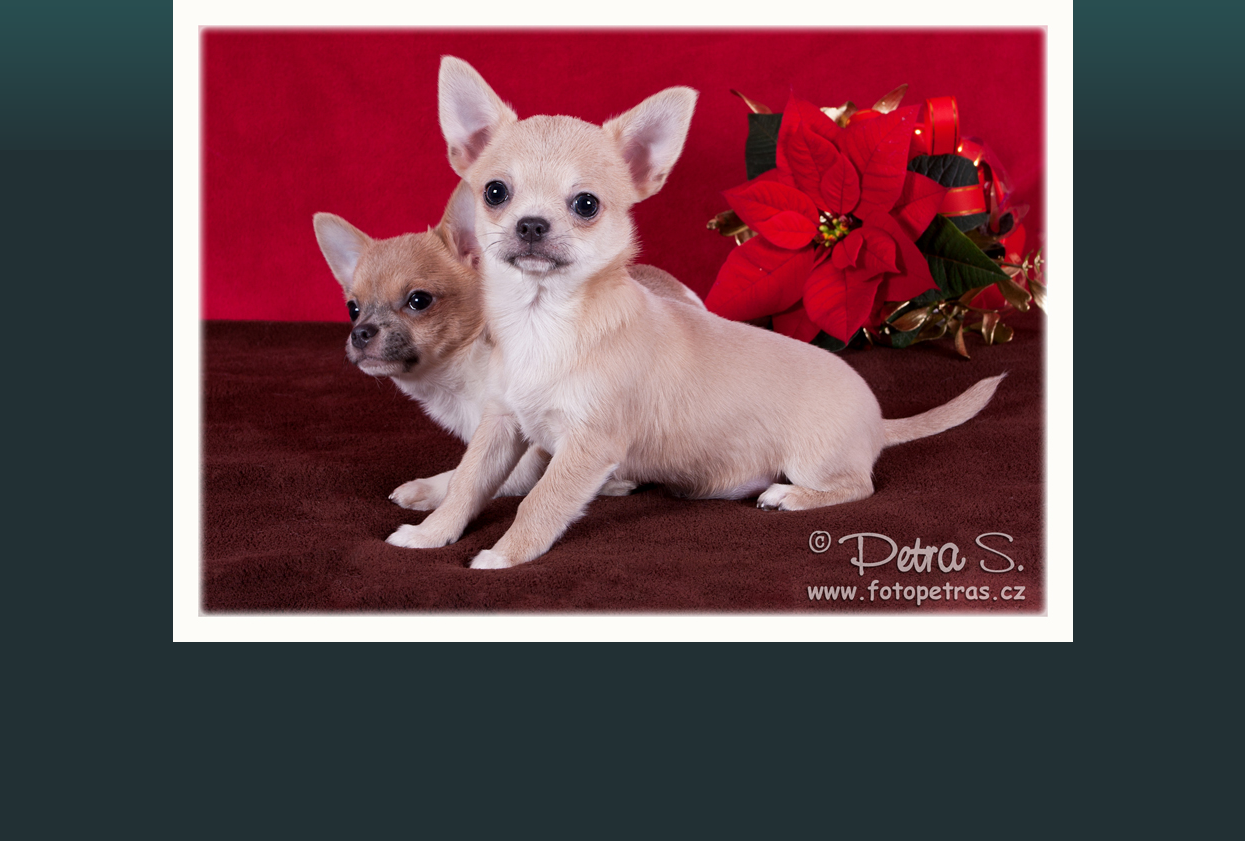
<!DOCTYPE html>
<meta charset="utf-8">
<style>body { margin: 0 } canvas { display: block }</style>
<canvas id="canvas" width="1245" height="841"></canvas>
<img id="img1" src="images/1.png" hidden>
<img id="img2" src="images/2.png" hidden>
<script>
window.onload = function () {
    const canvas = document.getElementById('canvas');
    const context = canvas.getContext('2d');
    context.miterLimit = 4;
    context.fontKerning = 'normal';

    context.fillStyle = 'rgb(34, 48, 52)';
    context.fillRect(0, 0, 1245, 841);
    context.drawImage(document.getElementById('img1'), 0, 0, 1245, 150);
    context.drawImage(document.getElementById('img2'), 173, 0, 900, 642);
};
</script>
